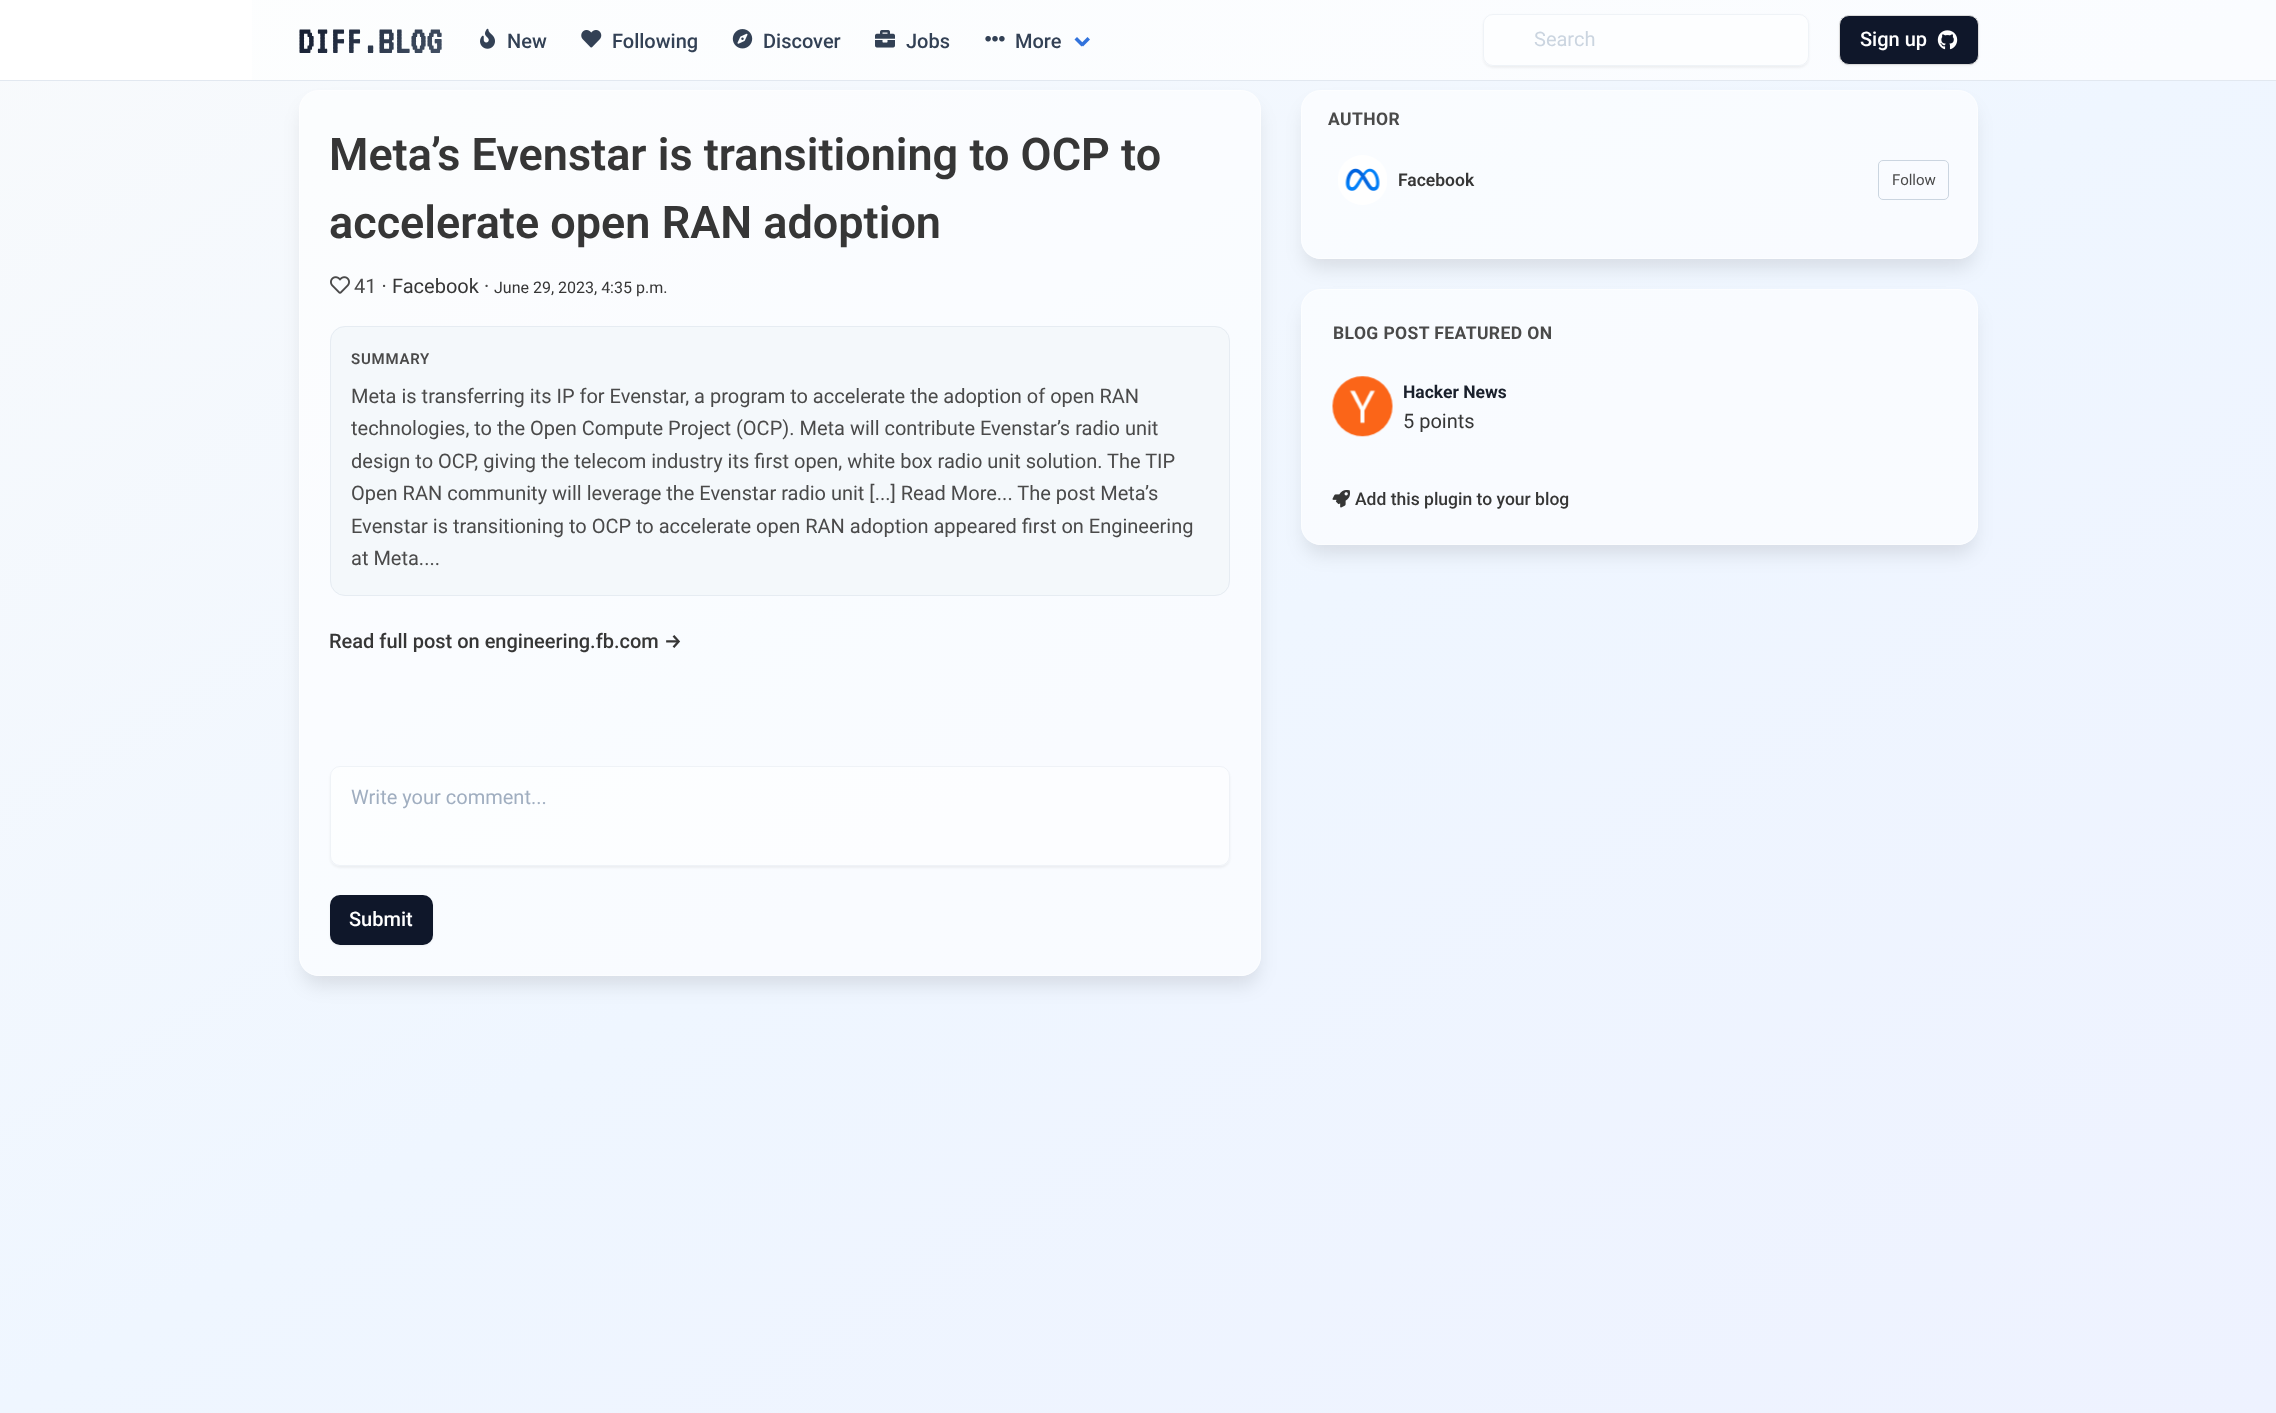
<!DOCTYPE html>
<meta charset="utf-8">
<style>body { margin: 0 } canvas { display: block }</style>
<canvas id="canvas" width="2276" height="1413"></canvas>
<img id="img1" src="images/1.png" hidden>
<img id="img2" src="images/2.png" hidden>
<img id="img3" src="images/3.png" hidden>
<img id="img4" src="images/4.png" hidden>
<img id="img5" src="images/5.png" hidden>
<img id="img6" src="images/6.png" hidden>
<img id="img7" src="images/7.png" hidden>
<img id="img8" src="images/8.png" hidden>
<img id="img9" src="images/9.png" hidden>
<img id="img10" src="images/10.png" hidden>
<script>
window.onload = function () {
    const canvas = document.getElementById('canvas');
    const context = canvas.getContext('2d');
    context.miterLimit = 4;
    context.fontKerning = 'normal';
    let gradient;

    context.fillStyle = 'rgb(255, 255, 255)';
    context.fillRect(0, 0, 2276, 1413);
    gradient = context.createLinearGradient(504, -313, 1772, 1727);
    gradient.addColorStop(0, 'rgb(248, 250, 252)');
    gradient.addColorStop(0.5, 'rgb(239, 246, 255)');
    gradient.addColorStop(1, 'rgb(238, 242, 255)');
    context.fillStyle = gradient;
    context.fillRect(0, 81, 2276, 1332);
    gradient = context.createLinearGradient(504, -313, 1772, 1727);
    gradient.addColorStop(0, 'rgb(253, 254, 254)');
    gradient.addColorStop(0.5, 'rgb(250, 252, 255)');
    gradient.addColorStop(1, 'rgb(250, 251, 255)');
    context.fillStyle = gradient;
    context.fillRect(252, 0, 2024, 80);
    context.save();
    context.beginPath();
    context.moveTo(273, 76);
    context.lineTo(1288, 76);
    context.lineTo(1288, 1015);
    context.lineTo(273, 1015);
    context.closePath();
    context.moveTo(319, 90);
    context.lineTo(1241, 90);
    context.bezierCurveTo(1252, 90, 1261, 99, 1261, 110);
    context.lineTo(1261, 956);
    context.bezierCurveTo(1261, 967, 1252, 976, 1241, 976);
    context.lineTo(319, 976);
    context.bezierCurveTo(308, 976, 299, 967, 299, 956);
    context.lineTo(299, 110);
    context.bezierCurveTo(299, 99, 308, 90, 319, 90);
    context.closePath();
    context.clip('evenodd');
    context.fillStyle = 'rgba(0, 0, 0, 0.1)';
    context.filter = 'blur(9.5px)';
    context.beginPath();
    context.roundRect(303, 106, 955, 879, 16);
    context.fill();
    context.filter = 'none';
    context.restore();
    context.save();
    context.beginPath();
    context.moveTo(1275, 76);
    context.lineTo(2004, 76);
    context.lineTo(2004, 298);
    context.lineTo(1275, 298);
    context.closePath();
    context.moveTo(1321, 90);
    context.lineTo(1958, 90);
    context.bezierCurveTo(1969, 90, 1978, 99, 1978, 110);
    context.lineTo(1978, 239);
    context.bezierCurveTo(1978, 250, 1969, 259, 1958, 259);
    context.lineTo(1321, 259);
    context.bezierCurveTo(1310, 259, 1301, 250, 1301, 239);
    context.lineTo(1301, 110);
    context.bezierCurveTo(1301, 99, 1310, 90, 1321, 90);
    context.closePath();
    context.clip('evenodd');
    context.fillStyle = 'rgba(0, 0, 0, 0.1)';
    context.filter = 'blur(9.5px)';
    context.beginPath();
    context.roundRect(1305, 106, 669, 162, 16);
    context.fill();
    context.filter = 'none';
    context.restore();
    context.fillStyle = 'rgb(226, 232, 240)';
    context.fillRect(0, 80, 2276, 1);
    context.drawImage(document.getElementById('img1'), 480, 28, 15, 21);
    context.drawImage(document.getElementById('img2'), 581, 30, 21, 18);
    context.drawImage(document.getElementById('img3'), 732, 29, 21, 20);
    context.drawImage(document.getElementById('img4'), 875, 30, 20, 18);
    context.drawImage(document.getElementById('img5'), 985, 36, 20, 6);
    context.fillStyle = 'rgb(50, 115, 220)';
    context.beginPath();
    context.moveTo(1080.5, 44);
    context.lineTo(1087.5, 37);
    context.lineTo(1090, 39.5);
    context.lineTo(1083, 46.5);
    context.closePath();
    context.fill();
    context.beginPath();
    context.moveTo(1074.5, 39.5);
    context.lineTo(1077, 37);
    context.lineTo(1084, 44);
    context.lineTo(1081.5, 46.5);
    context.closePath();
    context.fill();
    context.save();
    context.beginPath();
    context.moveTo(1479, 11);
    context.lineTo(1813, 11);
    context.lineTo(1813, 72);
    context.lineTo(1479, 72);
    context.closePath();
    context.moveTo(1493, 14);
    context.lineTo(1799, 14);
    context.bezierCurveTo(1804.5, 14, 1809, 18.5, 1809, 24);
    context.lineTo(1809, 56);
    context.bezierCurveTo(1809, 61.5, 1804.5, 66, 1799, 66);
    context.lineTo(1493, 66);
    context.bezierCurveTo(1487.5, 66, 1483, 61.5, 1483, 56);
    context.lineTo(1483, 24);
    context.bezierCurveTo(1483, 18.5, 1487.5, 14, 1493, 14);
    context.closePath();
    context.clip('evenodd');
    context.fillStyle = 'rgba(0, 0, 0, 0.05)';
    context.filter = 'blur(1px)';
    context.beginPath();
    context.roundRect(1483, 15, 326, 53, 10);
    context.fill();
    context.filter = 'none';
    context.restore();
    context.fillStyle = 'rgba(255, 255, 255, 0.5)';
    context.beginPath();
    context.roundRect(1483, 14, 326, 52, 10);
    context.fill();
    context.beginPath();
    context.roundRect(1483.5, 14.5, 325, 51, 9.5);
    context.strokeStyle = 'rgba(226, 232, 240, 0.5)';
    context.stroke();
    context.fillStyle = 'rgba(0, 0, 0, 0.05)';
    context.filter = 'blur(1px)';
    context.beginPath();
    context.roundRect(1839, 16, 140, 50, 10);
    context.fill();
    context.filter = 'none';
    context.fillStyle = 'rgb(15, 23, 42)';
    context.beginPath();
    context.roundRect(1839.5, 15.5, 139, 49, 9.5);
    context.fill();
    context.strokeStyle = 'rgb(219, 219, 219)';
    context.stroke();
    context.drawImage(document.getElementById('img6'), 1937, 30, 21, 20);
    context.fillStyle = 'rgba(255, 255, 255, 0.6)';
    context.beginPath();
    context.roundRect(299, 90, 962, 886, 20);
    context.fill();
    context.beginPath();
    context.roundRect(299.5, 90.5, 961, 885, 19.5);
    context.strokeStyle = 'rgba(255, 255, 255, 0.5)';
    context.stroke();
    context.drawImage(document.getElementById('img7'), 330, 276, 20, 18);
    context.fillStyle = 'rgb(244, 248, 251)';
    context.beginPath();
    context.roundRect(330, 326, 900, 270, 15);
    context.fill();
    context.beginPath();
    context.roundRect(330.5, 326.5, 899, 269, 14.5);
    context.strokeStyle = 'rgba(226, 232, 240, 0.8)';
    context.stroke();
    context.save();
    context.beginPath();
    context.moveTo(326, 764);
    context.lineTo(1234, 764);
    context.lineTo(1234, 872);
    context.lineTo(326, 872);
    context.closePath();
    context.moveTo(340, 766);
    context.lineTo(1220, 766);
    context.bezierCurveTo(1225.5, 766, 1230, 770.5, 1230, 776);
    context.lineTo(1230, 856);
    context.bezierCurveTo(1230, 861.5, 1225.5, 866, 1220, 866);
    context.lineTo(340, 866);
    context.bezierCurveTo(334.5, 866, 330, 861.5, 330, 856);
    context.lineTo(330, 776);
    context.bezierCurveTo(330, 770.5, 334.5, 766, 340, 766);
    context.closePath();
    context.clip('evenodd');
    context.fillStyle = 'rgba(0, 0, 0, 0.05)';
    context.filter = 'blur(1px)';
    context.beginPath();
    context.roundRect(330, 768, 900, 100, 10);
    context.fill();
    context.filter = 'none';
    context.restore();
    context.fillStyle = 'rgba(255, 255, 255, 0.5)';
    context.beginPath();
    context.roundRect(330, 766, 900, 100, 10);
    context.fill();
    context.beginPath();
    context.roundRect(330.5, 766.5, 899, 99, 9.5);
    context.strokeStyle = 'rgba(226, 232, 240, 0.5)';
    context.stroke();
    context.fillStyle = 'rgba(0, 0, 0, 0.05)';
    context.filter = 'blur(1px)';
    context.beginPath();
    context.roundRect(330, 896, 103, 50, 10);
    context.fill();
    context.filter = 'none';
    context.fillStyle = 'rgb(15, 23, 42)';
    context.beginPath();
    context.roundRect(330, 895, 103, 50, 10);
    context.fill();
    context.fillStyle = 'rgba(255, 255, 255, 0.6)';
    context.beginPath();
    context.roundRect(1301, 90, 677, 169, 20);
    context.fill();
    context.beginPath();
    context.roundRect(1301.5, 90.5, 676, 168, 19.5);
    context.strokeStyle = 'rgba(255, 255, 255, 0.5)';
    context.stroke();
    context.drawImage(document.getElementById('img8'), 1338, 155, 49, 50);
    context.beginPath();
    context.roundRect(1878.5, 160.5, 70, 39, 4.5);
    context.strokeStyle = 'rgb(203, 213, 224)';
    context.stroke();
    context.save();
    context.beginPath();
    context.moveTo(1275, 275);
    context.lineTo(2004, 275);
    context.lineTo(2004, 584);
    context.lineTo(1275, 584);
    context.closePath();
    context.moveTo(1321, 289);
    context.lineTo(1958, 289);
    context.bezierCurveTo(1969, 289, 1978, 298, 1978, 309);
    context.lineTo(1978, 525);
    context.bezierCurveTo(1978, 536, 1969, 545, 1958, 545);
    context.lineTo(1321, 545);
    context.bezierCurveTo(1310, 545, 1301, 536, 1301, 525);
    context.lineTo(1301, 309);
    context.bezierCurveTo(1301, 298, 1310, 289, 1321, 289);
    context.closePath();
    context.clip('evenodd');
    context.fillStyle = 'rgba(0, 0, 0, 0.1)';
    context.filter = 'blur(9.5px)';
    context.beginPath();
    context.roundRect(1305, 305, 669, 249, 16);
    context.fill();
    context.filter = 'none';
    context.restore();
    context.beginPath();
    context.roundRect(1301, 289, 677, 256, 20);
    context.fill();
    context.beginPath();
    context.roundRect(1301.5, 289.5, 676, 255, 19.5);
    context.strokeStyle = 'rgba(255, 255, 255, 0.5)';
    context.stroke();
    context.drawImage(document.getElementById('img9'), 1332, 376, 61, 61);
    context.drawImage(document.getElementById('img10'), 1332, 490, 18, 18);
    context.font = 'bold 40px "VT323"';
    gradient = context.createLinearGradient(319, -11, 421, 91);
    gradient.addColorStop(0, 'rgb(15, 23, 42)');
    gradient.addColorStop(1, 'rgb(71, 85, 105)');
    context.fillStyle = gradient;
    context.fillText('DIFF.BLOG', 298, 53);
    context.font = '500 20px Roboto';
    context.fillStyle = 'rgb(51, 65, 85)';
    context.fillText('New', 507, 48);
    context.fillText('Following', 612, 48);
    context.fillText('Discover', 763, 48);
    context.fillText('Jobs', 906, 48);
    context.fillText('More', 1015, 48);
    context.font = '20px Roboto';
    context.fillStyle = 'rgb(203, 213, 224)';
    context.fillText('Search', 1534, 46);
    context.font = '500 20px Roboto';
    context.fillStyle = 'rgb(255, 255, 255)';
    context.fillText('Sign up', 1860, 46);
    context.font = '600 45px Roboto';
    context.fillStyle = 'rgb(54, 54, 54)';
    context.fillText('Meta’s Evenstar is transitioning to OCP to', 329, 170);
    context.fillText('accelerate open RAN adoption', 329, 238);
    context.font = '20px Roboto';
    context.fillStyle = 'rgb(74, 74, 74)';
    context.fillText('41 ·', 354, 293);
    context.fillStyle = 'rgb(54, 54, 54)';
    context.fillText('Facebook', 392, 293);
    context.fillStyle = 'rgb(74, 74, 74)';
    context.fillText('·', 484, 293);
    context.font = '16px Roboto';
    context.fillStyle = 'rgb(54, 54, 54)';
    context.fillText('June 29, 2023, 4:35 p.m.', 494, 293);
    context.letterSpacing = '0.75px';
    context.font = '600 15px Roboto';
    context.fillStyle = 'rgb(74, 74, 74)';
    context.fillText('SUMMARY', 351, 364);
    context.letterSpacing = '0px';
    context.font = '20px Roboto';
    context.fillText('Meta is transferring its IP for Evenstar, a program to accelerate the adoption of open RAN', 351, 403);
    context.fillText('technologies, to the Open Compute Project (OCP). Meta will contribute Evenstar’s radio unit', 351, 435);
    context.fillText('design to OCP, giving the telecom industry its first open, white box radio unit solution. The TIP', 351, 468);
    context.fillText('Open RAN community will leverage the Evenstar radio unit [...] Read More... The post Meta’s', 351, 500);
    context.fillText('Evenstar is transitioning to OCP to accelerate open RAN adoption appeared first on Engineering', 351, 533);
    context.fillText('at Meta....', 351, 565);
    context.font = '500 20px Roboto';
    context.fillStyle = 'rgb(54, 54, 54)';
    context.fillText('Read full post on engineering.fb.com', 329, 648);
    context.font = '500 20px Fira Sans';
    context.fillText('→', 664, 648);
    context.font = '20px Roboto';
    context.fillStyle = 'rgb(160, 174, 192)';
    context.fillText('Write your comment...', 351, 804);
    context.font = '500 20px Roboto';
    context.fillStyle = 'rgb(255, 255, 255)';
    context.fillText('Submit', 349, 926);
    context.letterSpacing = '0.4px';
    context.font = 'bold 17.5px Roboto';
    context.fillStyle = 'rgb(74, 74, 74)';
    context.fillText('AUTHOR', 1328, 125);
    context.letterSpacing = '0px';
    context.font = '600 17.5px Roboto';
    context.fillStyle = 'rgb(54, 54, 54)';
    context.fillText('Facebook', 1398, 186);
    context.font = '15px Roboto';
    context.fillStyle = 'rgb(74, 74, 74)';
    context.fillText('Follow', 1892, 185);
    context.letterSpacing = '0.4px';
    context.font = 'bold 17.5px Roboto';
    context.fillText('BLOG POST FEATURED ON', 1333, 339);
    context.letterSpacing = '0px';
    context.fillStyle = 'rgb(26, 32, 44)';
    context.fillText('Hacker News', 1403, 398);
    context.font = '20px Roboto';
    context.fillStyle = 'rgb(54, 54, 54)';
    context.fillText('5 points', 1403, 428);
    context.font = '500 17.5px Roboto';
    context.fillText('Add this plugin to your blog', 1355, 505);
};
</script>
